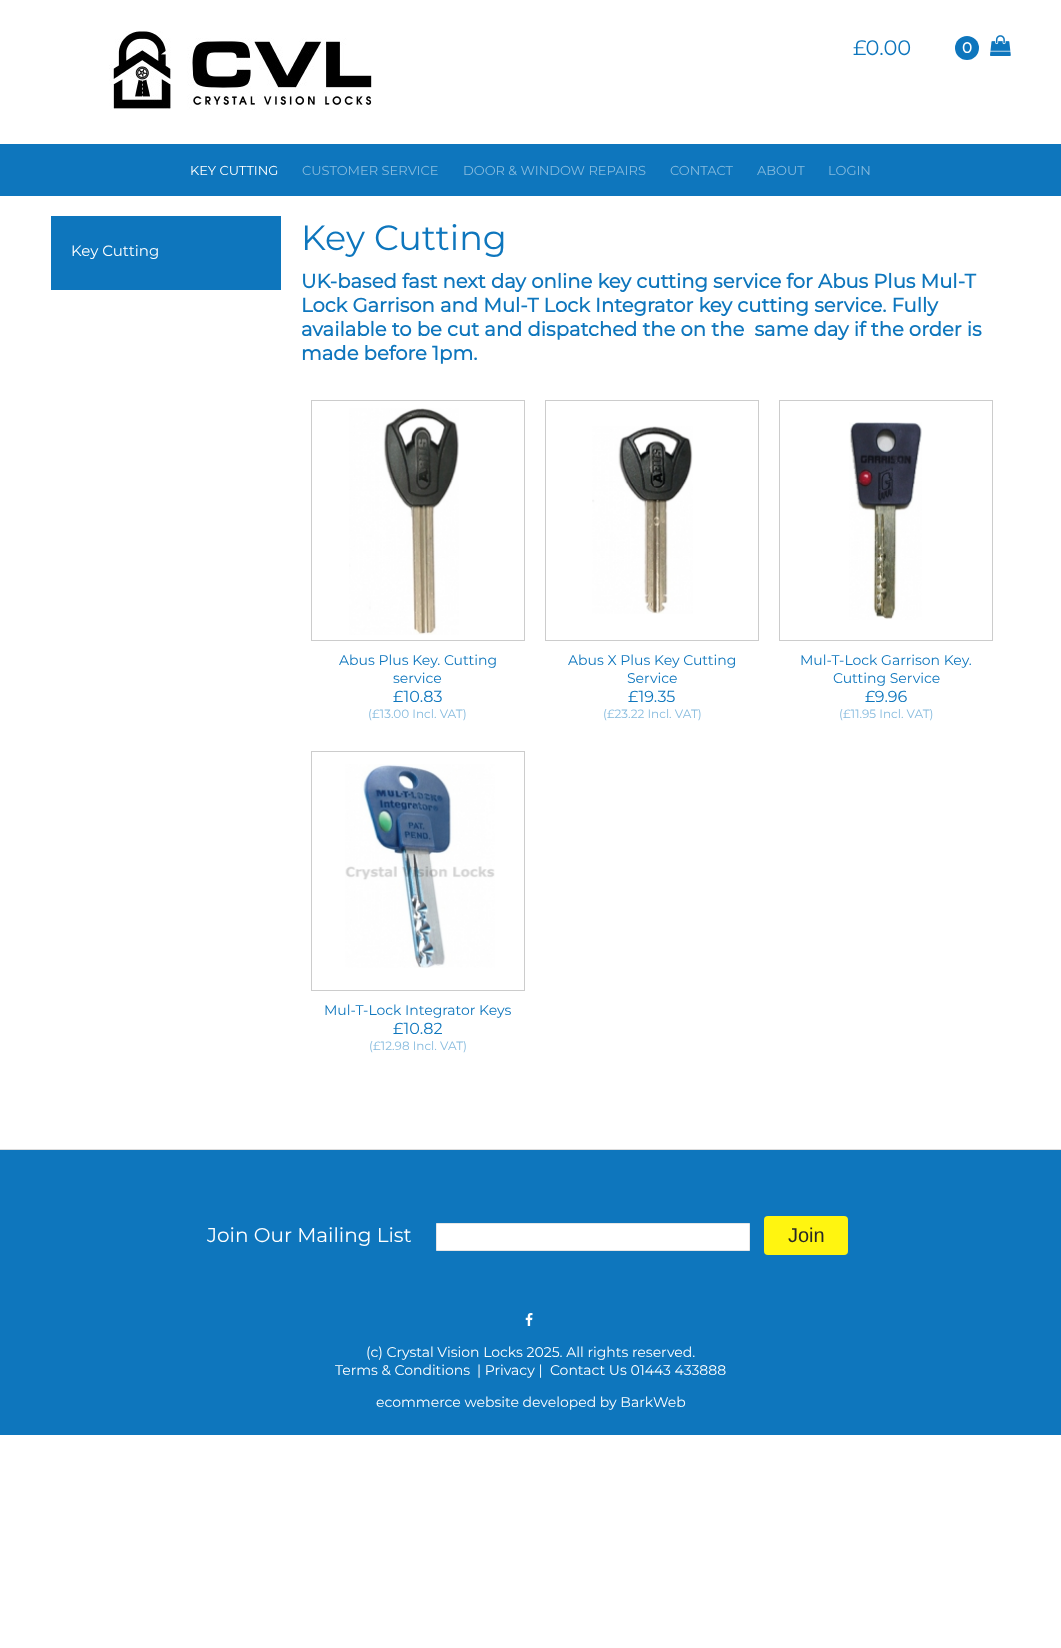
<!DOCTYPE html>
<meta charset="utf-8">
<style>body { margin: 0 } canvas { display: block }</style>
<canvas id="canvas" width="1061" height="1648"></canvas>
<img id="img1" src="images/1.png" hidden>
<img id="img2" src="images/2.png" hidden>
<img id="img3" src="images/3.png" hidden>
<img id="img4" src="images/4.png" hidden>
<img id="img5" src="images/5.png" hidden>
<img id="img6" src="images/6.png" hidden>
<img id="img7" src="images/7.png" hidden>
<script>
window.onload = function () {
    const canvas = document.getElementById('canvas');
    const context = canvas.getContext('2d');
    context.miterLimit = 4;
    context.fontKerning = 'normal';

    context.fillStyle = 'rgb(255, 255, 255)';
    context.fillRect(0, 0, 1061, 1648);
    context.drawImage(document.getElementById('img1'), 109, 31, 263, 79);
    context.fillStyle = 'rgb(14, 118, 189)';
    context.beginPath();
    context.arc(967, 48, 12, 0, 2 * Math.PI);
    context.fill();
    context.drawImage(document.getElementById('img2'), 990, 35, 21, 21);
    context.fillRect(0, 144, 1061, 52);
    context.fillRect(51, 216, 230, 74);
    context.strokeStyle = 'rgb(204, 204, 204)';
    context.strokeRect(311.5, 400.5, 213, 240);
    context.drawImage(document.getElementById('img3'), 349, 408, 110, 227);
    context.strokeRect(545.5, 400.5, 213, 240);
    context.drawImage(document.getElementById('img4'), 592, 426, 101, 188);
    context.strokeRect(779.5, 400.5, 213, 240);
    context.drawImage(document.getElementById('img5'), 849, 422, 73, 198);
    context.strokeRect(311.5, 751.5, 213, 239);
    context.drawImage(document.getElementById('img6'), 345, 764, 150, 204);
    context.fillRect(0, 1150, 1061, 285);
    context.fillStyle = 'rgb(220, 220, 220)';
    context.fillRect(0, 1149, 1061, 1);
    context.fillStyle = 'rgb(255, 255, 255)';
    context.beginPath();
    context.rect(436.5, 1223.5, 313, 27);
    context.fill();
    context.strokeStyle = 'rgb(230, 230, 230)';
    context.stroke();
    context.fillStyle = 'rgb(255, 245, 16)';
    context.beginPath();
    context.roundRect(764, 1216, 84, 39, 4);
    context.fill();
    context.drawImage(document.getElementById('img7'), 525, 1313, 8, 13);
    context.font = '100 21px Montserrat';
    context.fillStyle = 'rgb(14, 118, 189)';
    context.fillText('£0.00', 853, 55);
    context.font = 'bold 15px Montserrat';
    context.fillStyle = 'rgb(255, 255, 255)';
    context.fillText('0', 962, 53);
    context.font = '100 13px Montserrat';
    context.fillText('KEY CUTTING', 190, 175);
    context.fillStyle = 'rgb(135, 187, 222)';
    context.fillText('CUSTOMER SERVICE', 302, 175);
    context.fillText('DOOR & WINDOW REPAIRS', 463, 175);
    context.fillText('CONTACT', 670, 175);
    context.fillText('ABOUT', 757, 175);
    context.fillText('LOGIN', 828, 175);
    context.font = '100 15px Montserrat';
    context.fillStyle = 'rgb(255, 255, 255)';
    context.fillText('Key Cutting', 71, 256);
    context.font = '100 35px Montserrat';
    context.fillStyle = 'rgb(14, 118, 189)';
    context.fillText('Key Cutting', 301, 250);
    context.font = 'bold 19.6px Montserrat';
    context.fillText('UK-based fast next day online key cutting service for Abus Plus Mul-T', 301, 288);
    context.fillText('Lock Garrison and Mul-T Lock Integrator key cutting service. Fully', 301, 312);
    context.fillText('available to be cut and dispatched the on the  same day if the order is', 301, 336);
    context.fillText('made before 1pm.', 301, 360);
    context.font = '100 14px Montserrat';
    context.fillText('Abus Plus Key. Cutting', 339, 665);
    context.fillText('service', 393, 683);
    context.font = '100 16px Montserrat';
    context.fillText('£10.83', 393, 702);
    context.font = '100 12px Montserrat';
    context.fillStyle = 'rgb(135, 187, 222)';
    context.fillText('(£13.00 Incl. VAT)', 368, 718);
    context.font = '100 14px Montserrat';
    context.fillStyle = 'rgb(14, 118, 189)';
    context.fillText('Abus X Plus Key Cutting', 568, 665);
    context.fillText('Service', 627, 683);
    context.font = '100 16px Montserrat';
    context.fillText('£19.35', 628, 702);
    context.font = '100 12px Montserrat';
    context.fillStyle = 'rgb(135, 187, 222)';
    context.fillText('(£23.22 Incl. VAT)', 603, 718);
    context.font = '100 14px Montserrat';
    context.fillStyle = 'rgb(14, 118, 189)';
    context.fillText('Mul-T-Lock Garrison Key.', 800, 665);
    context.fillText('Cutting Service', 833, 683);
    context.font = '100 16px Montserrat';
    context.fillText('£9.96', 865, 702);
    context.font = '100 12px Montserrat';
    context.fillStyle = 'rgb(135, 187, 222)';
    context.fillText('(£11.95 Incl. VAT)', 839, 718);
    context.font = '100 14px Montserrat';
    context.fillStyle = 'rgb(14, 118, 189)';
    context.fillText('Mul-T-Lock Integrator Keys', 324, 1015);
    context.font = '100 16px Montserrat';
    context.fillText('£10.82', 393, 1034);
    context.font = '100 12px Montserrat';
    context.fillStyle = 'rgb(135, 187, 222)';
    context.fillText('(£12.98 Incl. VAT)', 369, 1050);
    context.font = '100 20px Montserrat';
    context.fillStyle = 'rgb(255, 255, 255)';
    context.fillText('Join Our Mailing List', 207, 1242);
    context.font = '20px Liberation Sans';
    context.fillStyle = 'rgb(39, 39, 39)';
    context.fillText('Join', 788, 1242);
    context.font = '100 14px Montserrat';
    context.fillStyle = 'rgb(255, 255, 255)';
    context.fillText('(c) Crystal Vision Locks 2025. All rights reserved.', 366, 1357);
    context.fillText('Terms & Conditions', 335, 1375);
    context.fillText('| Privacy |', 477, 1375);
    context.fillText('Contact Us 01443 433888', 550, 1375);
    context.fillText('ecommerce website developed by BarkWeb', 376, 1407);
};
</script>
